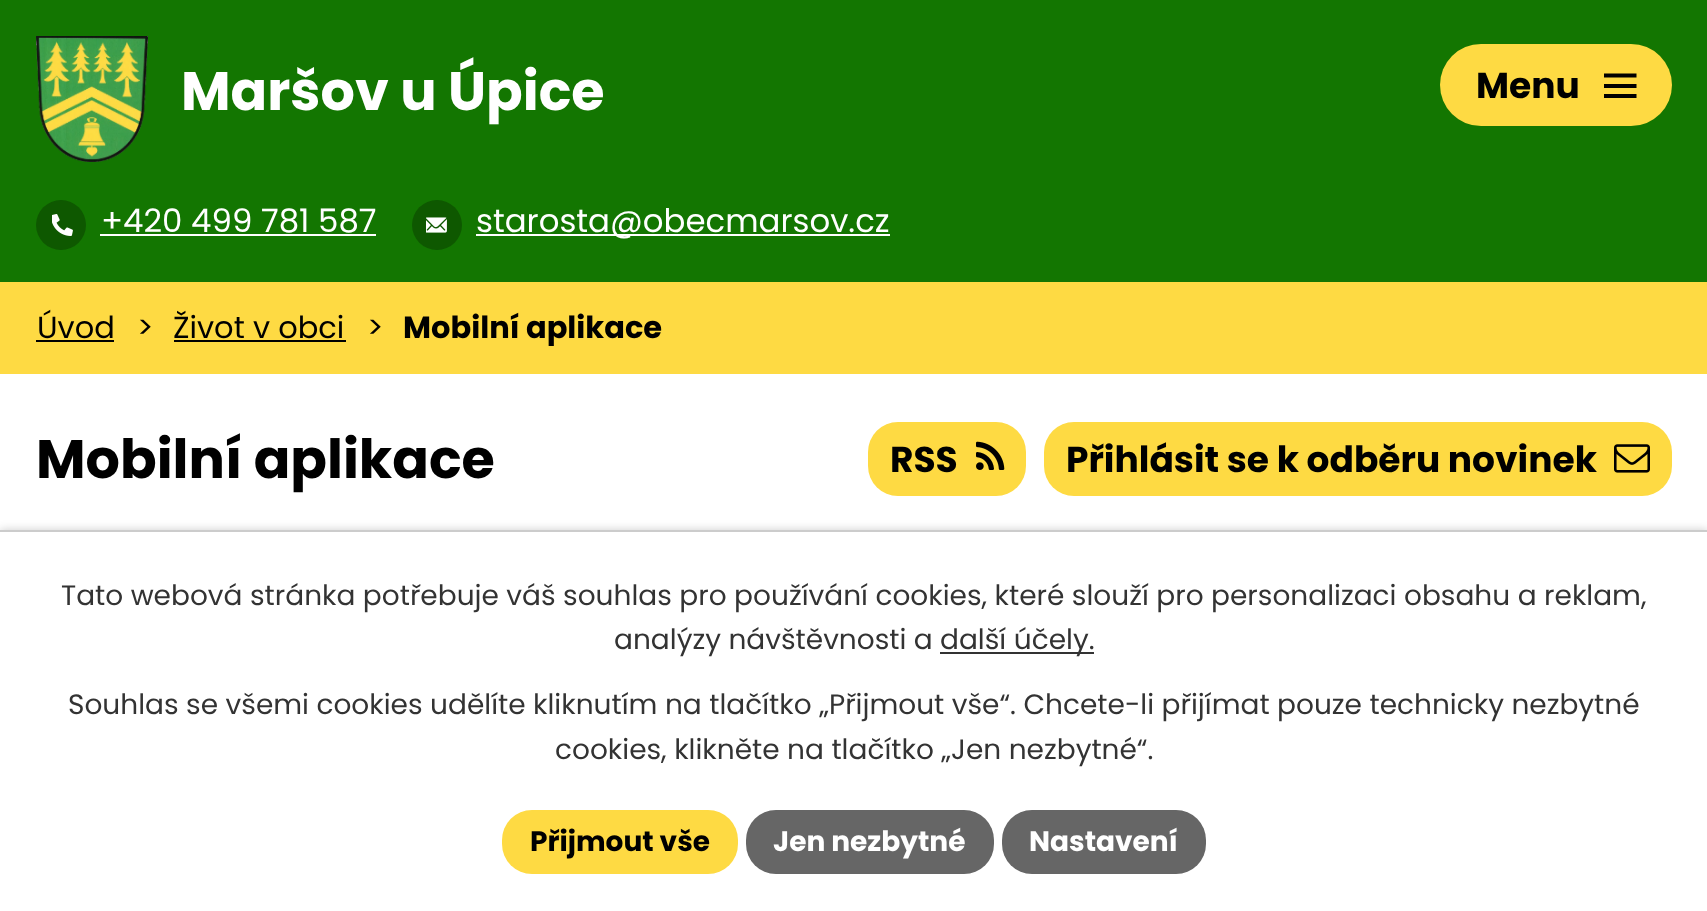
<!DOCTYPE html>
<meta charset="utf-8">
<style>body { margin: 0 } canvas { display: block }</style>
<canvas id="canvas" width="1707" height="911"></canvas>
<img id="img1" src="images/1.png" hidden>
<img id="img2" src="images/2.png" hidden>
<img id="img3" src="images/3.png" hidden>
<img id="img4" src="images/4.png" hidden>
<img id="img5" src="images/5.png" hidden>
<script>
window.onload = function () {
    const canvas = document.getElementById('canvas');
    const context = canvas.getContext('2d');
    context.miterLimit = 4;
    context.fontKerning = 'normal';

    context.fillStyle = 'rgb(255, 255, 255)';
    context.fillRect(0, 0, 1707, 911);
    context.fillStyle = 'rgb(19, 118, 1)';
    context.fillRect(0, 0, 1707, 282);
    context.drawImage(document.getElementById('img1'), 36, 36, 112, 126);
    context.fillStyle = 'rgb(14, 88, 0)';
    context.beginPath();
    context.arc(61, 225, 25, 0, 2 * Math.PI);
    context.fill();
    context.drawImage(document.getElementById('img2'), 52, 214, 21, 22);
    context.fillStyle = 'rgb(255, 255, 255)';
    context.fillRect(100, 234, 276, 2);
    context.fillStyle = 'rgb(14, 88, 0)';
    context.beginPath();
    context.arc(437, 225, 25, 0, 2 * Math.PI);
    context.fill();
    context.drawImage(document.getElementById('img3'), 426, 217, 21, 16);
    context.fillStyle = 'rgb(255, 255, 255)';
    context.fillRect(476, 234, 414, 2);
    context.fillStyle = 'rgb(254, 218, 67)';
    context.beginPath();
    context.roundRect(1440, 44, 232, 82, 41);
    context.fill();
    context.fillStyle = 'rgb(0, 0, 0)';
    context.beginPath();
    context.moveTo(1604, 98);
    context.lineTo(1604, 94);
    context.lineTo(1636.5, 94);
    context.lineTo(1636.5, 98);
    context.closePath();
    context.moveTo(1604, 73.5);
    context.lineTo(1636.5, 73.5);
    context.lineTo(1636.5, 77.5);
    context.lineTo(1604, 77.5);
    context.closePath();
    context.moveTo(1604, 88);
    context.lineTo(1604, 84);
    context.lineTo(1636.5, 84);
    context.lineTo(1636.5, 88);
    context.closePath();
    context.fill();
    context.fillStyle = 'rgb(254, 218, 67)';
    context.fillRect(0, 282, 1707, 92);
    context.fillStyle = 'rgb(0, 0, 0)';
    context.fillRect(36, 340, 78, 2);
    context.fillRect(174, 340, 172, 2);
    context.fillStyle = 'rgb(254, 218, 67)';
    context.beginPath();
    context.roundRect(868, 422, 158, 74, 30);
    context.fill();
    context.drawImage(document.getElementById('img4'), 976, 441, 29, 29);
    context.beginPath();
    context.roundRect(1044, 422, 628, 74, 30);
    context.fill();
    context.drawImage(document.getElementById('img5'), 1614, 444, 36, 29);
    context.fillStyle = 'rgba(0, 0, 0, 0.2)';
    context.filter = 'blur(5px)';
    context.beginPath();
    context.rect(0, 530, 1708, 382);
    context.fill();
    context.filter = 'none';
    context.fillStyle = 'rgb(255, 255, 255)';
    context.fillRect(0, 532, 1707, 379);
    context.fillStyle = 'rgb(204, 204, 204)';
    context.fillRect(0, 530, 1707, 2);
    context.fillStyle = 'rgb(51, 51, 51)';
    context.fillRect(940, 652, 154, 2);
    context.fillStyle = 'rgb(254, 218, 67)';
    context.beginPath();
    context.roundRect(502, 810, 236, 64, 30);
    context.fill();
    context.fillStyle = 'rgb(102, 102, 102)';
    context.beginPath();
    context.roundRect(746, 810, 248, 64, 30);
    context.fill();
    context.beginPath();
    context.roundRect(1002, 810, 204, 64, 30);
    context.fill();
    context.font = 'bold 54px Poppins';
    context.fillStyle = 'rgb(255, 255, 255)';
    context.fillText('Maršov u Úpice', 181, 110);
    context.font = '32.4px Poppins';
    context.fillText('+420 499 781 587', 101, 232);
    context.fillText('starosta@obecmarsov.cz', 476, 232);
    context.font = 'bold 36px Poppins';
    context.fillStyle = 'rgb(0, 0, 0)';
    context.fillText('Menu', 1476, 98);
    context.font = '30.5px Poppins';
    context.fillText('Úvod', 37, 338);
    context.fillText('>', 137, 338);
    context.fillText('Život v obci', 173, 338);
    context.fillText('>', 367, 338);
    context.font = 'bold 30.5px Poppins';
    context.fillText('Mobilní aplikace', 403, 338);
    context.font = 'bold 54px Poppins';
    context.fillText('Mobilní aplikace', 36, 478);
    context.font = 'bold 36px Poppins';
    context.fillText('RSS', 890, 472);
    context.fillText('Přihlásit se k odběru novinek', 1066, 472);
    context.font = '28px Poppins';
    context.fillStyle = 'rgb(51, 51, 51)';
    context.fillText('Tato webová stránka potřebuje váš souhlas pro používání cookies, které slouží pro personalizaci obsahu a reklam,', 61, 605);
    context.fillText('analýzy návštěvnosti a', 614, 649);
    context.fillText('další účely.', 940, 649);
    context.fillText('Souhlas se všemi cookies udělíte kliknutím na tlačítko „Přijmout vše“. Chcete-li přijímat pouze technicky nezbytné', 68, 714);
    context.fillText('cookies, klikněte na tlačítko „Jen nezbytné“.', 555, 759);
    context.font = 'bold 28px Poppins';
    context.fillStyle = 'rgb(0, 0, 0)';
    context.fillText('Přijmout vše', 530, 851);
    context.fillStyle = 'rgb(255, 255, 255)';
    context.fillText('Jen nezbytné', 773, 851);
    context.fillText('Nastavení', 1029, 851);
};
</script>
